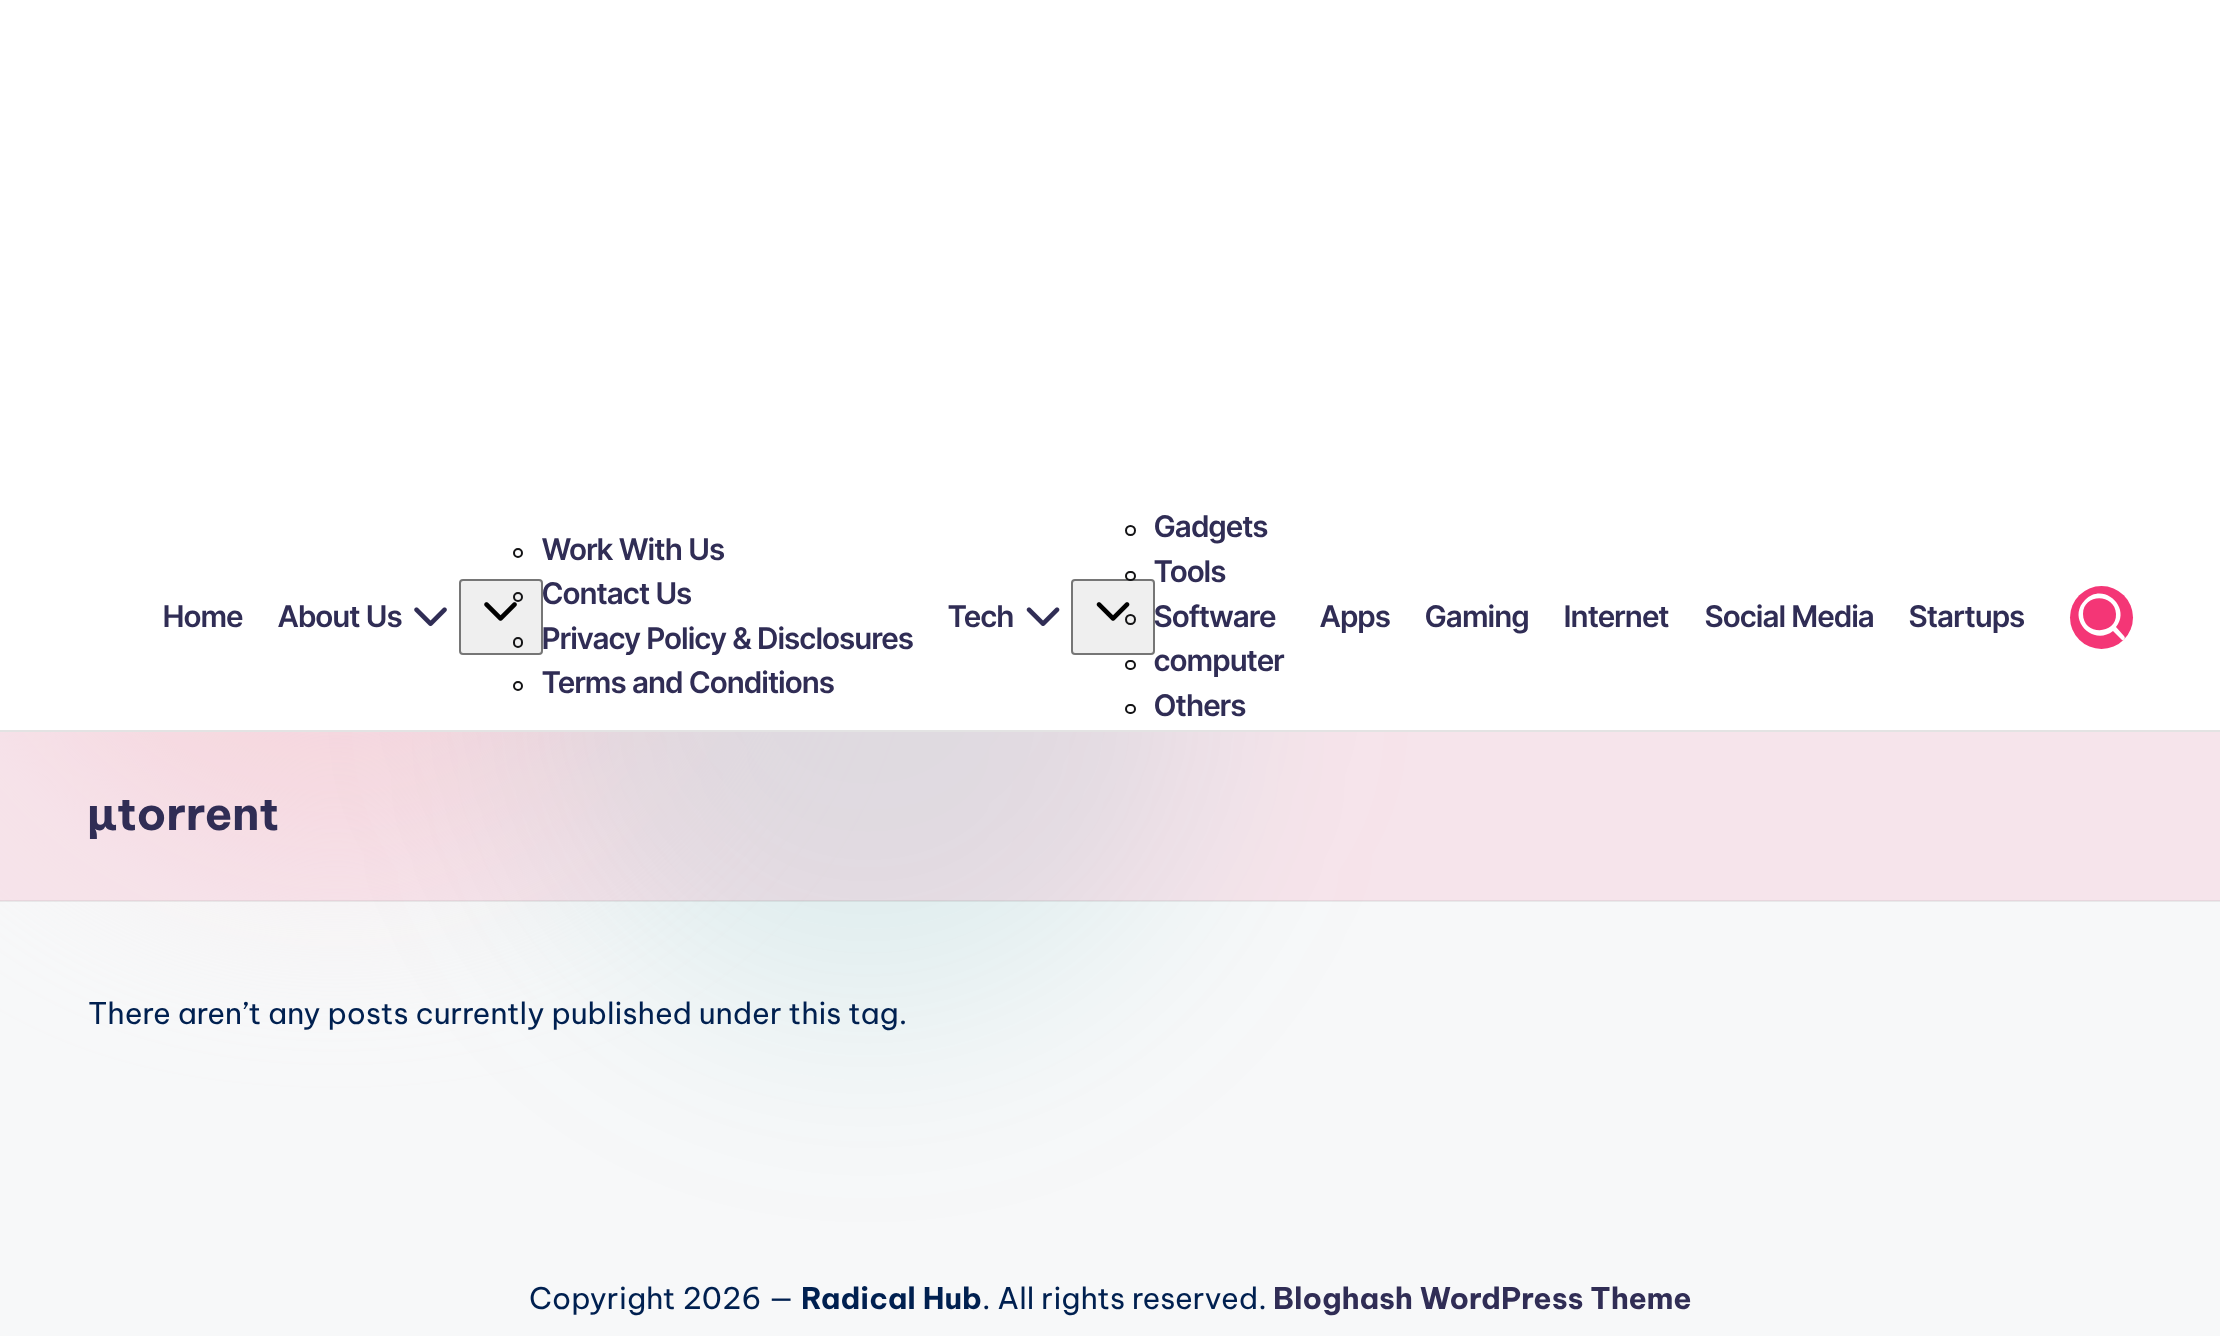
<!DOCTYPE html>
<meta charset="utf-8">
<style>body { margin: 0 } canvas { display: block }</style>
<canvas id="canvas" width="2220" height="1336"></canvas>
<img id="img1" src="images/1.png" hidden>
<img id="img2" src="images/2.png" hidden>
<img id="img3" src="images/3.png" hidden>
<img id="img4" src="images/4.png" hidden>
<script>
window.onload = function () {
    const canvas = document.getElementById('canvas');
    const context = canvas.getContext('2d');
    context.miterLimit = 4;
    context.fontKerning = 'normal';

    context.fillStyle = 'rgb(247, 248, 249)';
    context.fillRect(0, 0, 2220, 1336);
    context.fillStyle = 'rgb(245, 229, 231)';
    context.filter = 'blur(112px)';
    context.beginPath();
    context.roundRect(0, 158, 672, 672, 336);
    context.fill();
    context.filter = 'none';
    context.fillStyle = 'rgba(4, 134, 139, 0.1)';
    context.filter = 'blur(112px)';
    context.beginPath();
    context.roundRect(532, 350, 672, 672, 336);
    context.fill();
    context.filter = 'none';
    context.fillStyle = 'rgb(255, 255, 255)';
    context.fillRect(0, 0, 2220, 730);
    context.fillStyle = 'rgb(227, 227, 227)';
    context.fillRect(0, 730, 2220, 2);
    context.drawImage(document.getElementById('img1'), 414, 607, 33, 20);
    context.fillStyle = 'rgb(239, 239, 239)';
    context.beginPath();
    context.roundRect(460, 580, 82, 74, 3);
    context.fill();
    context.strokeStyle = 'rgb(118, 118, 118)';
    context.lineWidth = 2;
    context.stroke();
    context.drawImage(document.getElementById('img2'), 484, 602, 33, 19);
    context.beginPath();
    context.arc(518, 553, 4, 0, 2 * Math.PI);
    context.strokeStyle = 'rgb(19, 19, 21)';
    context.stroke();
    context.beginPath();
    context.arc(518, 597, 4, 0, 2 * Math.PI);
    context.stroke();
    context.beginPath();
    context.roundRect(514, 638, 8, 9, 4);
    context.stroke();
    context.beginPath();
    context.arc(518, 686, 4, 0, 2 * Math.PI);
    context.stroke();
    context.drawImage(document.getElementById('img3'), 1026, 607, 34, 19);
    context.beginPath();
    context.roundRect(1072, 580, 82, 74, 3);
    context.fill();
    context.strokeStyle = 'rgb(118, 118, 118)';
    context.stroke();
    context.beginPath();
    context.arc(1130.5, 619.5, 4.5, 0, 2 * Math.PI);
    context.strokeStyle = 'rgb(19, 19, 21)';
    context.stroke();
    context.drawImage(document.getElementById('img4'), 1096, 602, 34, 19);
    context.beginPath();
    context.arc(1130.5, 530.5, 4.5, 0, 2 * Math.PI);
    context.stroke();
    context.beginPath();
    context.roundRect(1126, 572, 9, 8, 4);
    context.stroke();
    context.beginPath();
    context.roundRect(1126, 661, 9, 8, 4);
    context.stroke();
    context.beginPath();
    context.roundRect(1126, 705, 9, 8, 4);
    context.stroke();
    context.fillStyle = 'rgb(244, 54, 118)';
    context.beginPath();
    context.arc(2101.5, 617.5, 31.5, 0, 2 * Math.PI);
    context.fill();
    context.fillStyle = 'rgb(255, 255, 255)';
    context.beginPath();
    context.moveTo(2124, 636);
    context.lineTo(2116, 627);
    context.bezierCurveTo(2132, 607, 2103, 581, 2085, 600);
    context.bezierCurveTo(2066, 619, 2093, 647, 2113, 631);
    context.lineTo(2122, 640);
    context.bezierCurveTo(2124, 641, 2126, 638, 2124, 636);
    context.closePath();
    context.moveTo(2083, 614);
    context.bezierCurveTo(2083, 593, 2115, 593, 2116, 614);
    context.bezierCurveTo(2117, 635, 2083, 636, 2083, 614);
    context.closePath();
    context.fill();
    context.fillStyle = 'rgba(244, 54, 118, 0.1)';
    context.fillRect(0, 732, 2220, 169);
    context.fillStyle = 'rgba(0, 0, 0, 0.06)';
    context.fillRect(0, 900, 2220, 2);
    context.font = '600 29.75px Inter Tight';
    context.fillStyle = 'rgb(48, 45, 85)';
    context.fillText('Home', 163, 627);
    context.fillText('About Us', 278, 627);
    context.fillText('Work With Us', 542, 560);
    context.fillText('Contact Us', 542, 604);
    context.fillText('Privacy Policy & Disclosures', 542, 649);
    context.fillText('Terms and Conditions', 542, 693);
    context.fillText('Tech', 948, 627);
    context.fillText('Gadgets', 1154, 537);
    context.fillText('Tools', 1154, 582);
    context.fillText('Software', 1154, 627);
    context.fillText('computer', 1154, 671);
    context.fillText('Others', 1154, 716);
    context.fillText('Apps', 1320, 627);
    context.fillText('Gaming', 1425, 627);
    context.fillText('Internet', 1564, 627);
    context.fillText('Social Media', 1705, 627);
    context.fillText('Startups', 1909, 627);
    context.font = 'bold 45.5px Be Vietnam Pro';
    context.fillText('µtorrent', 88, 830);
    context.font = '29.75px Be Vietnam Pro';
    context.fillStyle = 'rgb(0, 32, 80)';
    context.fillText('There aren’t any posts currently published under this tag.', 88, 1024);
    context.fillText('Copyright 2026 —', 529, 1309);
    context.font = 'bold 29.75px Be Vietnam Pro';
    context.fillText('Radical Hub', 801, 1309);
    context.font = '29.75px Be Vietnam Pro';
    context.fillText('. All rights reserved.', 982, 1309);
    context.font = 'bold 29.75px Be Vietnam Pro';
    context.fillStyle = 'rgb(48, 45, 85)';
    context.fillText('Bloghash WordPress Theme', 1273, 1309);
};
</script>
